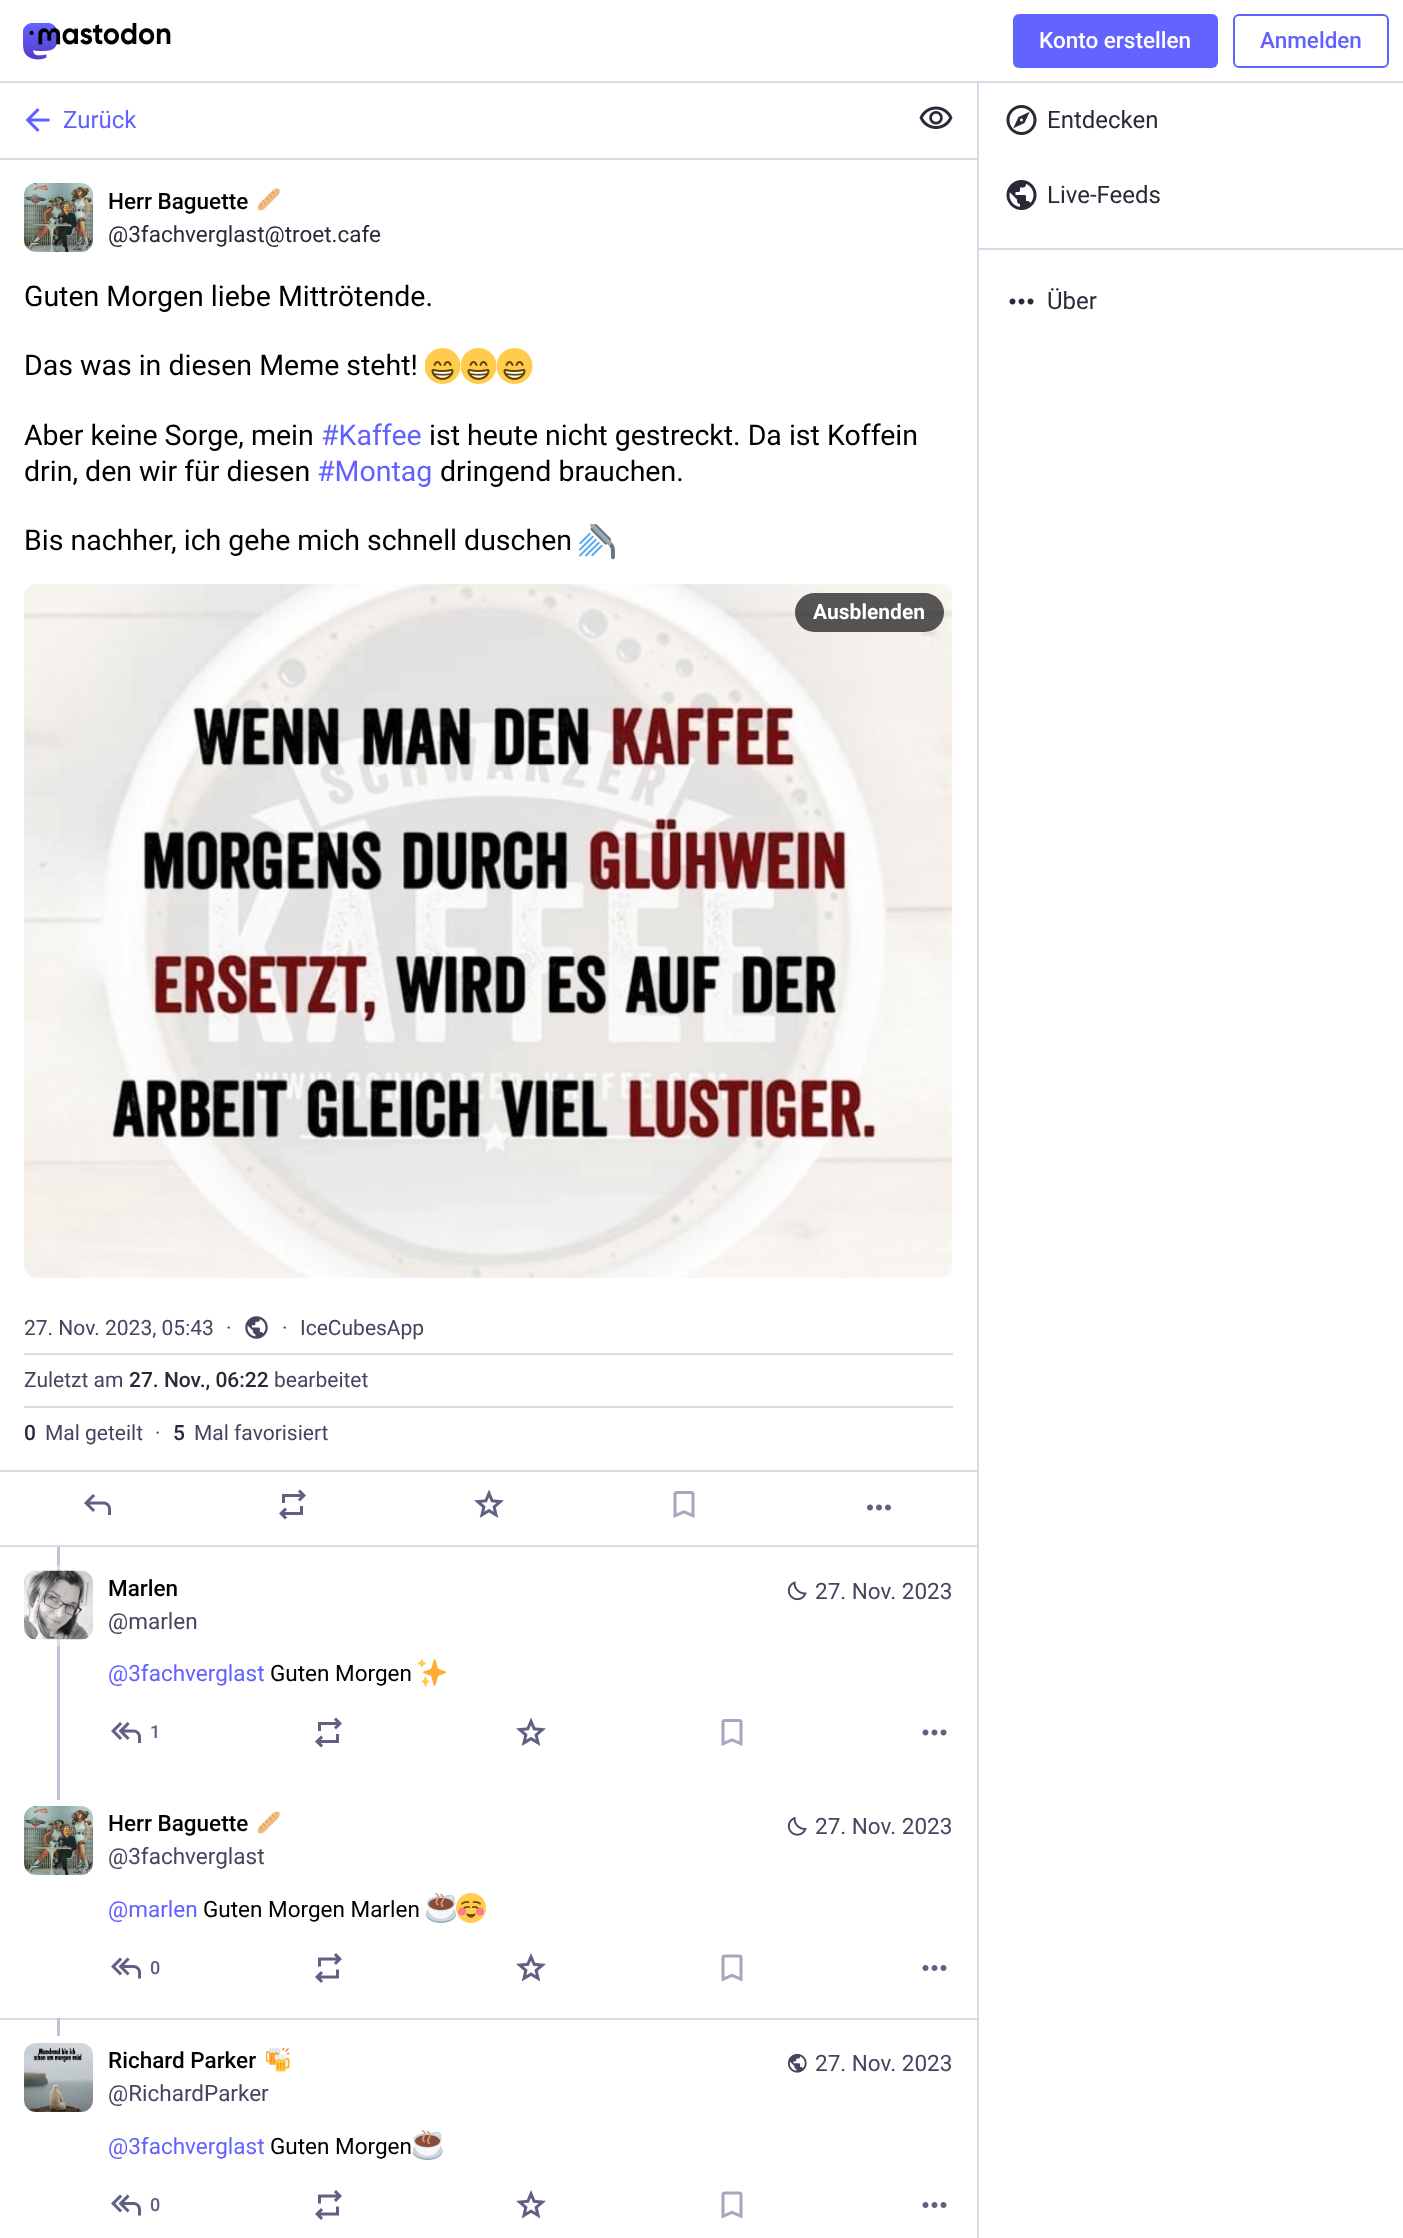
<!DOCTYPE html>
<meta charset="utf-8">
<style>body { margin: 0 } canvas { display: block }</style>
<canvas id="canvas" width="1403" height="2238"></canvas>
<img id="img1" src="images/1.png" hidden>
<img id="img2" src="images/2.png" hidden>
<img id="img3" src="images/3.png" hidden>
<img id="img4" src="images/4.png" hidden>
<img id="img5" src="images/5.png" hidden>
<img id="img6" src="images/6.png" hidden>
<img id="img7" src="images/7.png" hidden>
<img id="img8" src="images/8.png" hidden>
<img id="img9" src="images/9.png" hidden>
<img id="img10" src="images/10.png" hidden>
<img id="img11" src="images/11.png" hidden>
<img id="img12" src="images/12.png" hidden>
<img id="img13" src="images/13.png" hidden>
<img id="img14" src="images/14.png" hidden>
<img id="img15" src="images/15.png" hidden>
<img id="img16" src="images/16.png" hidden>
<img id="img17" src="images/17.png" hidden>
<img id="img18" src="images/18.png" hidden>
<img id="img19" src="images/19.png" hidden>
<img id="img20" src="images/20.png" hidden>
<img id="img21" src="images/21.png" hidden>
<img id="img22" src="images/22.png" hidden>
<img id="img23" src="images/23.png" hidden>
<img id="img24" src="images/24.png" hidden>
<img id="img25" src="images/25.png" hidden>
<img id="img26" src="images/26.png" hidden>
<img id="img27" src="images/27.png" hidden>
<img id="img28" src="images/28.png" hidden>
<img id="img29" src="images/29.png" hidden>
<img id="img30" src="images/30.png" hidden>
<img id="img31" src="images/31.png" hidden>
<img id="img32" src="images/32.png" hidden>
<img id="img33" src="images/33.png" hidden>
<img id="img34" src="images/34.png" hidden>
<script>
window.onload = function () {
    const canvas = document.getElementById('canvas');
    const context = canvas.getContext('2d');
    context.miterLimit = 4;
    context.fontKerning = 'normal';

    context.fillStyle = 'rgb(255, 255, 255)';
    context.fillRect(0, 0, 1403, 2238);
    context.fillStyle = 'rgb(217, 217, 232)';
    context.fillRect(0, 81, 1403, 2);
    context.drawImage(document.getElementById('img1'), 23, 23, 148, 37);
    context.fillStyle = 'rgb(99, 100, 255)';
    context.beginPath();
    context.roundRect(1013, 14, 205, 54, 6);
    context.fill();
    context.beginPath();
    context.roundRect(1234, 15, 154, 52, 5);
    context.strokeStyle = 'rgb(97, 97, 255)';
    context.lineWidth = 2;
    context.stroke();
    context.fillStyle = 'rgb(217, 217, 232)';
    context.fillRect(0, 158, 977, 2);
    context.drawImage(document.getElementById('img2'), 25, 108, 25, 24);
    context.drawImage(document.getElementById('img3'), 919, 106, 34, 23);
    context.drawImage(document.getElementById('img4'), 24, 183, 69, 69);
    context.drawImage(document.getElementById('img5'), 257, 188, 23, 23);
    context.drawImage(document.getElementById('img6'), 425, 348, 36, 36);
    context.drawImage(document.getElementById('img6'), 461, 348, 36, 36);
    context.drawImage(document.getElementById('img6'), 497, 348, 36, 36);
    context.drawImage(document.getElementById('img7'), 579, 524, 36, 36);
    context.drawImage(document.getElementById('img8'), 24, 584, 929, 694);
    context.beginPath();
    context.roundRect(25, 585, 927, 692, 11);
    context.strokeStyle = 'rgba(252, 248, 255, 0.15)';
    context.stroke();
    context.fillStyle = 'rgba(0, 0, 0, 0.65)';
    context.beginPath();
    context.roundRect(795, 593, 149, 39, 19.5);
    context.fill();
    context.fillStyle = 'rgb(217, 217, 232)';
    context.fillRect(24, 1353, 929, 2);
    context.drawImage(document.getElementById('img9'), 245, 1316, 23, 23);
    context.fillRect(24, 1406, 929, 2);
    context.fillRect(0, 1470, 977, 2);
    context.fillRect(0, 1545, 977, 2);
    context.drawImage(document.getElementById('img10'), 84, 1494, 27, 21);
    context.drawImage(document.getElementById('img11'), 279, 1489, 27, 31);
    context.drawImage(document.getElementById('img12'), 474, 1489, 30, 29);
    context.drawImage(document.getElementById('img13'), 673, 1491, 22, 27);
    context.drawImage(document.getElementById('img14'), 867, 1504, 24, 7);
    context.fillStyle = 'rgb(198, 191, 217)';
    context.fillRect(57, 1547, 3, 253);
    context.fillStyle = 'rgb(221, 217, 232)';
    context.fillRect(57, 1565, 3, 81);
    context.drawImage(document.getElementById('img15'), 24, 1570, 69, 70);
    context.drawImage(document.getElementById('img16'), 787, 1581, 20, 20);
    context.drawImage(document.getElementById('img17'), 417, 1659, 30, 28);
    context.drawImage(document.getElementById('img18'), 111, 1722, 30, 21);
    context.drawImage(document.getElementById('img11'), 315, 1717, 27, 31);
    context.drawImage(document.getElementById('img12'), 516, 1717, 30, 29);
    context.drawImage(document.getElementById('img13'), 721, 1719, 22, 27);
    context.drawImage(document.getElementById('img19'), 922, 1729, 25, 7);
    context.drawImage(document.getElementById('img4'), 24, 1806, 69, 69);
    context.drawImage(document.getElementById('img5'), 257, 1811, 23, 23);
    context.drawImage(document.getElementById('img20'), 787, 1816, 20, 20);
    context.drawImage(document.getElementById('img21'), 426, 1893, 30, 30);
    context.drawImage(document.getElementById('img22'), 456, 1893, 30, 30);
    context.drawImage(document.getElementById('img23'), 111, 1957, 30, 22);
    context.drawImage(document.getElementById('img24'), 315, 1953, 27, 30);
    context.drawImage(document.getElementById('img25'), 516, 1953, 30, 29);
    context.drawImage(document.getElementById('img26'), 721, 1954, 22, 28);
    context.drawImage(document.getElementById('img27'), 922, 1965, 25, 6);
    context.fillStyle = 'rgb(217, 217, 232)';
    context.fillRect(0, 2018, 977, 2);
    context.fillStyle = 'rgb(198, 191, 217)';
    context.fillRect(57, 2018, 3, 18);
    context.drawImage(document.getElementById('img28'), 24, 2043, 69, 69);
    context.drawImage(document.getElementById('img29'), 266, 2048, 24, 24);
    context.drawImage(document.getElementById('img30'), 787, 2053, 20, 20);
    context.drawImage(document.getElementById('img31'), 413, 2130, 30, 30);
    context.drawImage(document.getElementById('img23'), 111, 2194, 30, 22);
    context.drawImage(document.getElementById('img24'), 315, 2190, 27, 30);
    context.drawImage(document.getElementById('img25'), 516, 2190, 30, 29);
    context.drawImage(document.getElementById('img26'), 721, 2191, 22, 28);
    context.drawImage(document.getElementById('img27'), 922, 2202, 25, 6);
    context.fillStyle = 'rgb(217, 217, 232)';
    context.fillRect(977, 83, 2, 2155);
    context.drawImage(document.getElementById('img32'), 1006, 105, 31, 30);
    context.drawImage(document.getElementById('img33'), 1006, 180, 31, 30);
    context.fillRect(978, 248, 425, 2);
    context.drawImage(document.getElementById('img34'), 1009, 298, 25, 7);
    context.font = '500 22.5px Roboto';
    context.fillStyle = 'rgb(255, 255, 255)';
    context.fillText('Konto erstellen', 1039, 48);
    context.fillStyle = 'rgb(97, 97, 255)';
    context.fillText('Anmelden', 1260, 48);
    context.font = '24px Roboto';
    context.fillText('Zurück', 63, 128);
    context.font = '500 22.5px Roboto';
    context.fillStyle = 'rgb(0, 0, 0)';
    context.fillText('Herr Baguette', 108, 209);
    context.font = '22.5px Roboto';
    context.fillStyle = 'rgb(41, 41, 56)';
    context.fillText('@3fachverglast@troet.cafe', 108, 242);
    context.font = '28.5px Roboto';
    context.fillStyle = 'rgb(0, 0, 0)';
    context.fillText('Guten Morgen liebe Mittrötende.', 24, 306);
    context.fillText('Das was in diesen Meme steht!', 24, 375);
    context.fillText('Aber keine Sorge, mein', 24, 445);
    context.fillStyle = 'rgb(97, 97, 255)';
    context.fillText('#Kaffee', 321, 445);
    context.fillStyle = 'rgb(0, 0, 0)';
    context.fillText('ist heute nicht gestreckt. Da ist Koffein', 429, 445);
    context.fillText('drin, den wir für diesen', 24, 481);
    context.fillStyle = 'rgb(97, 97, 255)';
    context.fillText('#Montag', 317, 481);
    context.fillStyle = 'rgb(0, 0, 0)';
    context.fillText('dringend brauchen.', 440, 481);
    context.fillText('Bis nachher, ich gehe mich schnell duschen', 24, 550);
    context.font = 'bold 21px Roboto';
    context.fillStyle = 'rgb(255, 255, 255)';
    context.fillText('Ausblenden', 813, 619);
    context.font = '21px Roboto';
    context.fillStyle = 'rgb(69, 69, 95)';
    context.fillText('27. Nov. 2023, 05:43', 24, 1335);
    context.fillText('·', 226, 1335);
    context.fillText('·', 282, 1335);
    context.fillText('IceCubesApp', 300, 1335);
    context.fillText('Zuletzt am', 24, 1387);
    context.font = '500 21px Roboto';
    context.fillStyle = 'rgb(41, 41, 56)';
    context.fillText('27. Nov., 06:22', 129, 1387);
    context.font = '21px Roboto';
    context.fillStyle = 'rgb(69, 69, 95)';
    context.fillText('bearbeitet', 274, 1387);
    context.font = '500 21px Roboto';
    context.fillStyle = 'rgb(41, 41, 56)';
    context.fillText('0', 24, 1440);
    context.font = '21px Roboto';
    context.fillStyle = 'rgb(69, 69, 95)';
    context.fillText('Mal geteilt', 45, 1440);
    context.fillText('·', 155, 1440);
    context.font = '500 21px Roboto';
    context.fillStyle = 'rgb(41, 41, 56)';
    context.fillText('5', 173, 1440);
    context.font = '21px Roboto';
    context.fillStyle = 'rgb(69, 69, 95)';
    context.fillText('Mal favorisiert', 194, 1440);
    context.font = '500 22.5px Roboto';
    context.fillStyle = 'rgb(0, 0, 0)';
    context.fillText('Marlen', 108, 1596);
    context.font = '22.5px Roboto';
    context.fillStyle = 'rgb(69, 69, 95)';
    context.fillText('@marlen', 108, 1629);
    context.fillText('27. Nov. 2023', 815, 1599);
    context.fillStyle = 'rgb(97, 97, 255)';
    context.fillText('@3fachverglast', 108, 1681);
    context.fillStyle = 'rgb(0, 0, 0)';
    context.fillText('Guten Morgen', 270, 1681);
    context.font = '500 18px Roboto';
    context.fillStyle = 'rgb(96, 96, 133)';
    context.fillText('1', 150, 1738);
    context.font = '500 22.5px Roboto';
    context.fillStyle = 'rgb(0, 0, 0)';
    context.fillText('Herr Baguette', 108, 1831);
    context.font = '22.5px Roboto';
    context.fillStyle = 'rgb(69, 69, 95)';
    context.fillText('@3fachverglast', 108, 1864);
    context.fillText('27. Nov. 2023', 815, 1834);
    context.fillStyle = 'rgb(97, 97, 255)';
    context.fillText('@marlen', 108, 1917);
    context.fillStyle = 'rgb(0, 0, 0)';
    context.fillText('Guten Morgen Marlen', 203, 1917);
    context.font = '500 18px Roboto';
    context.fillStyle = 'rgb(96, 96, 133)';
    context.fillText('0', 150, 1974);
    context.font = '500 22.5px Roboto';
    context.fillStyle = 'rgb(0, 0, 0)';
    context.fillText('Richard Parker', 108, 2068);
    context.font = '22.5px Roboto';
    context.fillStyle = 'rgb(69, 69, 95)';
    context.fillText('@RichardParker', 108, 2101);
    context.fillText('27. Nov. 2023', 815, 2071);
    context.fillStyle = 'rgb(97, 97, 255)';
    context.fillText('@3fachverglast', 108, 2154);
    context.fillStyle = 'rgb(0, 0, 0)';
    context.fillText('Guten Morgen', 270, 2154);
    context.font = '500 18px Roboto';
    context.fillStyle = 'rgb(96, 96, 133)';
    context.fillText('0', 150, 2211);
    context.font = '24px Roboto';
    context.fillStyle = 'rgb(41, 41, 56)';
    context.fillText('Entdecken', 1047, 128);
    context.fillText('Live-Feeds', 1047, 203);
    context.fillText('Über', 1047, 309);
};
</script>
